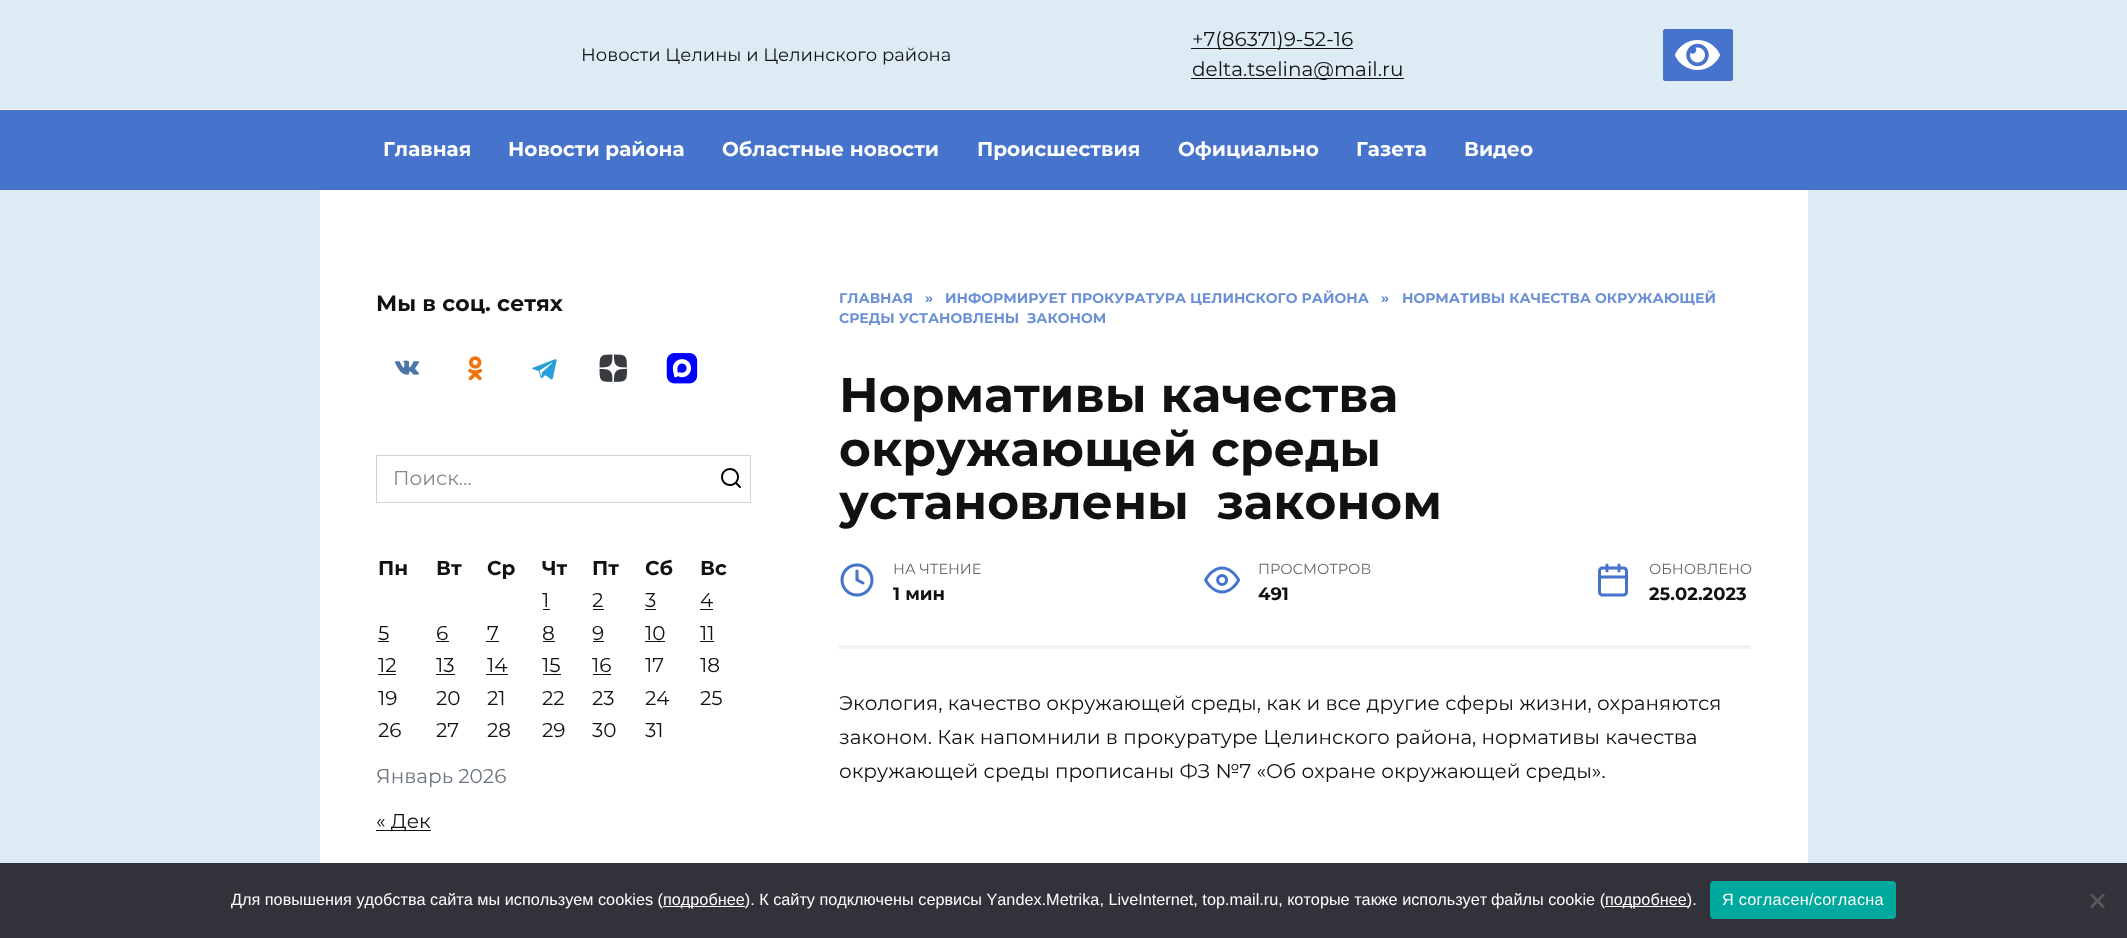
<!DOCTYPE html>
<meta charset="utf-8">
<style>body { margin: 0 } canvas { display: block }</style>
<canvas id="canvas" width="2127" height="938"></canvas>
<img id="img1" src="images/1.png" hidden>
<img id="img2" src="images/2.png" hidden>
<img id="img3" src="images/3.png" hidden>
<img id="img4" src="images/4.png" hidden>
<img id="img5" src="images/5.png" hidden>
<img id="img6" src="images/6.png" hidden>
<script>
window.onload = function () {
    const canvas = document.getElementById('canvas');
    const context = canvas.getContext('2d');
    context.miterLimit = 4;
    context.fontKerning = 'none';

    context.fillStyle = 'rgb(220, 235, 244)';
    context.fillRect(0, 0, 2127, 938);
    context.fillStyle = 'rgb(242, 245, 249)';
    context.fillRect(0, 109, 2127, 1);
    context.fillStyle = 'rgb(17, 17, 17)';
    context.fillRect(1191, 48, 162, 1);
    context.fillRect(1191, 78, 213, 1);
    context.fillStyle = 'rgb(70, 116, 204)';
    context.beginPath();
    context.roundRect(1663, 29, 70, 52, 2.5);
    context.fill();
    context.drawImage(document.getElementById('img1'), 1675, 40, 45, 30);
    context.fillRect(0, 110, 2127, 80);
    context.fillStyle = 'rgb(255, 255, 255)';
    context.fillRect(320, 190, 1488, 673);
    context.drawImage(document.getElementById('img2'), 394, 360, 26, 15);
    context.drawImage(document.getElementById('img3'), 468, 356, 15, 25);
    context.drawImage(document.getElementById('img4'), 532, 359, 25, 21);
    context.drawImage(document.getElementById('img5'), 599, 354, 28, 28);
    context.drawImage(document.getElementById('img6'), 666, 353, 32, 31);
    context.strokeStyle = 'rgb(206, 212, 218)';
    context.strokeRect(376.5, 455.5, 374, 47);
    context.fillStyle = 'rgb(17, 17, 17)';
    context.fillRect(543, 609, 7, 1);
    context.fillRect(593, 609, 11, 1);
    context.fillRect(645, 609, 11, 1);
    context.fillRect(700, 609, 13, 1);
    context.fillRect(378, 641, 11, 1);
    context.fillRect(436, 641, 13, 1);
    context.fillRect(486, 641, 13, 1);
    context.fillRect(543, 641, 12, 1);
    context.fillRect(593, 641, 11, 1);
    context.fillRect(645, 641, 20, 1);
    context.fillRect(700, 641, 14, 1);
    context.fillRect(378, 674, 18, 1);
    context.fillRect(436, 674, 19, 1);
    context.fillRect(486, 674, 22, 1);
    context.fillRect(543, 674, 18, 1);
    context.fillRect(593, 674, 18, 1);
    context.fillRect(376, 830, 55, 1);
    context.fillStyle = 'rgb(242, 242, 242)';
    context.fillRect(839, 645, 912, 4);
    context.fillStyle = 'rgb(50, 50, 58)';
    context.fillRect(0, 863, 2127, 75);
    context.fillStyle = 'rgb(255, 255, 255)';
    context.fillRect(663, 906, 82, 1);
    context.fillRect(1605, 906, 83, 1);
    context.fillStyle = 'rgb(0, 169, 157)';
    context.beginPath();
    context.roundRect(1710, 881, 186, 38, 4);
    context.fill();
    context.fillStyle = 'rgb(89, 89, 93)';
    context.beginPath();
    context.moveTo(2103, 893.5);
    context.lineTo(2105, 895);
    context.lineTo(2092, 908.5);
    context.lineTo(2090, 906.5);
    context.closePath();
    context.fill();
    context.beginPath();
    context.moveTo(2090, 895);
    context.lineTo(2092, 893.5);
    context.lineTo(2105, 906.5);
    context.lineTo(2103, 908.5);
    context.closePath();
    context.fill();
    context.font = '18px Montserrat';
    context.fillStyle = 'rgb(17, 17, 17)';
    context.fillText('Новости Целины и Целинского района', 581, 61);
    context.font = '20px Montserrat';
    context.fillText('+7(86371)9-52-16', 1192, 46);
    context.fillText('delta.tselina@mail.ru', 1192, 76);
    context.font = 'bold 20px Montserrat';
    context.fillStyle = 'rgb(255, 255, 255)';
    context.fillText('Главная', 383, 156);
    context.fillText('Новости района', 508, 156);
    context.fillText('Областные новости', 722, 156);
    context.fillText('Происшествия', 977, 156);
    context.fillText('Официально', 1178, 156);
    context.fillText('Газета', 1356, 156);
    context.fillText('Видео', 1464, 156);
    context.font = 'bold 22px Montserrat';
    context.fillStyle = 'rgb(17, 17, 17)';
    context.fillText('Мы в соц. сетях', 376, 311);
    context.font = '20px Montserrat';
    context.fillStyle = 'rgb(136, 136, 136)';
    context.fillText('Поиск…', 393, 485);
    context.font = '24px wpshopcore';
    context.fillStyle = 'rgb(0, 0, 0)';
    context.fillText('🔍', 719, 488);
    context.font = 'bold 20px Montserrat';
    context.fillStyle = 'rgb(17, 17, 17)';
    context.fillText('Пн', 378, 575);
    context.fillText('Вт', 436, 575);
    context.fillText('Ср', 487, 575);
    context.fillText('Чт', 542, 575);
    context.fillText('Пт', 592, 575);
    context.fillText('Сб', 645, 575);
    context.fillText('Вс', 700, 575);
    context.font = '20px Montserrat';
    context.fillText('1', 542, 607);
    context.fillText('2', 592, 607);
    context.fillText('3', 645, 607);
    context.fillText('4', 700, 607);
    context.fillText('5', 378, 640);
    context.fillText('6', 436, 640);
    context.fillText('7', 487, 640);
    context.fillText('8', 542, 640);
    context.fillText('9', 592, 640);
    context.fillText('10', 645, 640);
    context.fillText('11', 700, 640);
    context.fillText('12', 378, 672);
    context.fillText('13', 436, 672);
    context.fillText('14', 487, 672);
    context.fillText('15', 542, 672);
    context.fillText('16', 592, 672);
    context.fillText('17', 645, 672);
    context.fillText('18', 700, 672);
    context.fillText('19', 378, 705);
    context.fillText('20', 436, 705);
    context.fillText('21', 487, 705);
    context.fillText('22', 542, 705);
    context.fillText('23', 592, 705);
    context.fillText('24', 645, 705);
    context.fillText('25', 700, 705);
    context.fillText('26', 378, 737);
    context.fillText('27', 436, 737);
    context.fillText('28', 487, 737);
    context.fillText('29', 542, 737);
    context.fillText('30', 592, 737);
    context.fillText('31', 645, 737);
    context.fillStyle = 'rgb(108, 117, 125)';
    context.fillText('Январь 2026', 376, 783);
    context.fillStyle = 'rgb(17, 17, 17)';
    context.fillText('« Дек', 376, 828);
    context.font = 'bold 14px Montserrat';
    context.fillStyle = 'rgb(107, 144, 214)';
    context.fillText('ГЛАВНАЯ', 839, 303);
    context.fillText('»', 925, 303);
    context.fillText('ИНФОРМИРУЕТ ПРОКУРАТУРА', 945, 303);
    context.fillText('ЦЕЛИНСКОГО РАЙОНА', 1190, 303);
    context.fillText('»', 1381, 303);
    context.fillText('НОРМАТИВЫ КАЧЕСТВА ОКРУЖАЮЩЕЙ', 1402, 303);
    context.fillText('СРЕДЫ УСТАНОВЛЕНЫ  ЗАКОНОМ', 839, 323);
    context.font = 'bold 48.75px Montserrat';
    context.fillStyle = 'rgb(17, 17, 17)';
    context.fillText('Нормативы качества', 839, 412);
    context.fillText('окружающей среды', 839, 466);
    context.fillText('установлены  законом', 839, 519);
    context.font = '36px wpshopcore';
    context.fillStyle = 'rgb(70, 116, 204)';
    context.fillText('🕒', 839, 595);
    context.font = '14.5px Montserrat';
    context.fillStyle = 'rgb(102, 102, 102)';
    context.fillText('НА ЧТЕНИЕ', 893, 574);
    context.font = 'bold 18px Montserrat';
    context.fillStyle = 'rgb(17, 17, 17)';
    context.fillText('1 мин', 893, 600);
    context.font = '36px wpshopcore';
    context.fillStyle = 'rgb(70, 116, 204)';
    context.fillText('👀', 1204, 595);
    context.font = '14.5px Montserrat';
    context.fillStyle = 'rgb(102, 102, 102)';
    context.fillText('ПРОСМОТРОВ', 1258, 574);
    context.font = 'bold 18px Montserrat';
    context.fillStyle = 'rgb(17, 17, 17)';
    context.fillText('491', 1258, 600);
    context.font = '36px wpshopcore';
    context.fillStyle = 'rgb(70, 116, 204)';
    context.fillText('📅', 1595, 595);
    context.font = '14.5px Montserrat';
    context.fillStyle = 'rgb(102, 102, 102)';
    context.fillText('ОБНОВЛЕНО', 1649, 574);
    context.font = 'bold 18px Montserrat';
    context.fillStyle = 'rgb(17, 17, 17)';
    context.fillText('25.02.2023', 1649, 600);
    context.font = '20px Montserrat';
    context.fillText('Экология, качество окружающей среды, как и все другие сферы жизни, охраняются', 839, 710);
    context.fillText('законом. Как напомнили в прокуратуре Целинского района, нормативы качества', 839, 744);
    context.fillText('окружающей среды прописаны ФЗ №7 «Об охране окружающей среды».', 839, 778);
    context.font = '16.25px Liberation Sans';
    context.fillStyle = 'rgb(255, 255, 255)';
    context.fillText('Для повышения удобства сайта мы используем cookies (', 231, 905);
    context.fillText('подробнее). К сайту подключены сервисы Yandex.Metrika, LiveInternet, top.mail.ru, которые также использует', 663, 905);
    context.fillText('файлы cookie (', 1491, 905);
    context.fillText('подробнее).', 1605, 905);
    context.letterSpacing = '0.3px';
    context.fillText('Я согласен/согласна', 1722, 905);
};
</script>
